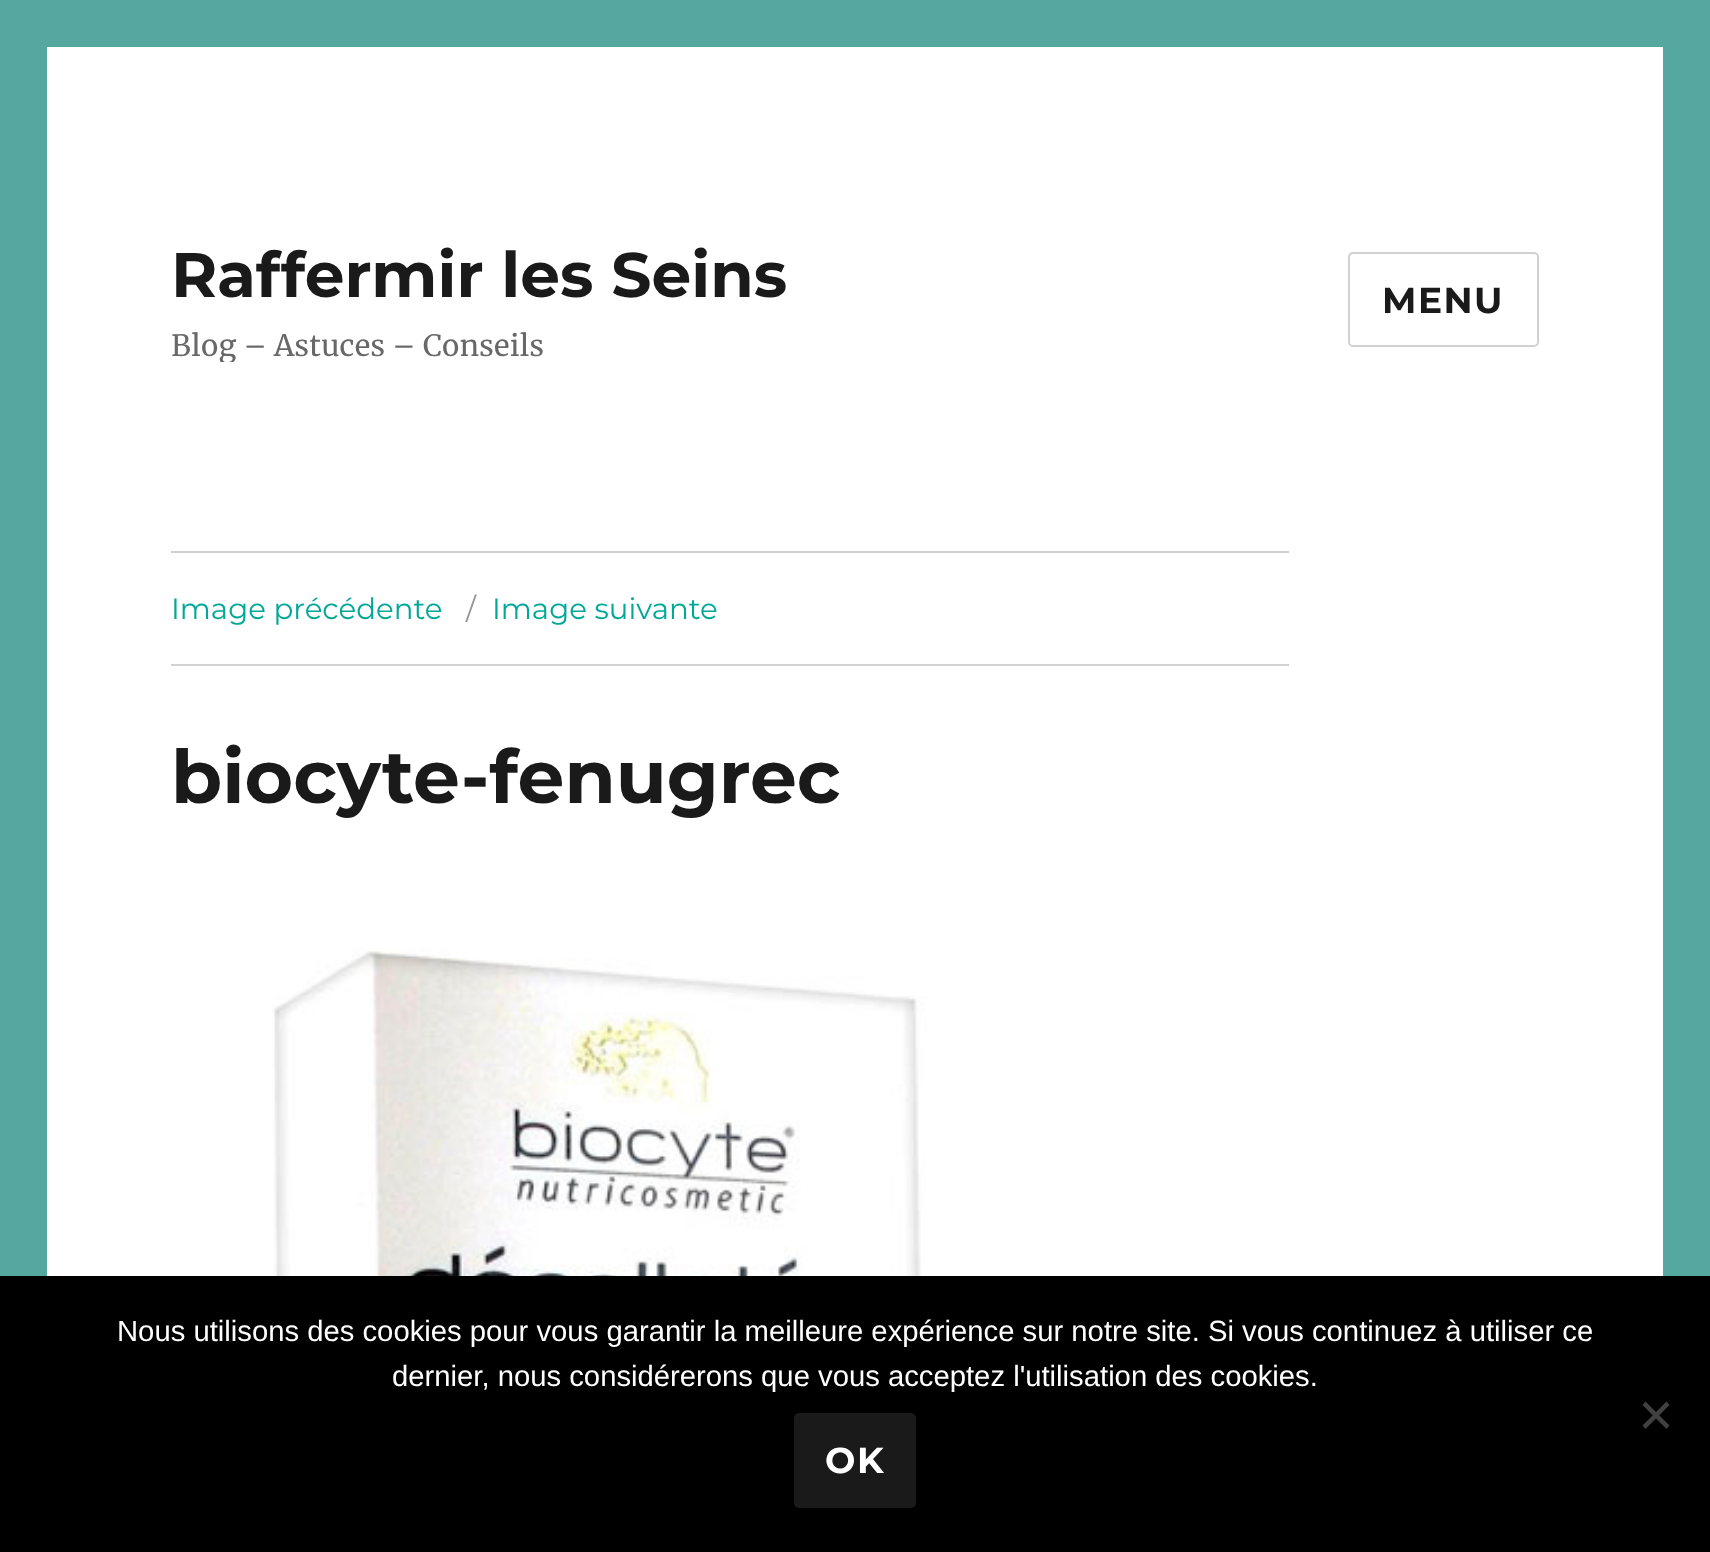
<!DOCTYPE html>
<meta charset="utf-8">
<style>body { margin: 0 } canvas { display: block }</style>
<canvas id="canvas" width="1710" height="1552"></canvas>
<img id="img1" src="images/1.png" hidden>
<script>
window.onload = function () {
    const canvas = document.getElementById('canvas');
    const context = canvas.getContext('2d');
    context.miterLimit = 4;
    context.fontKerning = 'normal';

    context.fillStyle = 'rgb(84, 168, 159)';
    context.fillRect(0, 0, 1710, 1552);
    context.fillStyle = 'rgb(255, 255, 255)';
    context.fillRect(47, 47, 1616, 1229);
    context.beginPath();
    context.roundRect(1349, 253, 189, 93, 4);
    context.strokeStyle = 'rgb(209, 209, 209)';
    context.lineWidth = 2;
    context.stroke();
    context.fillStyle = 'rgb(209, 209, 209)';
    context.fillRect(171, 551, 1118, 2);
    context.fillRect(171, 664, 1118, 2);
    context.drawImage(document.getElementById('img1'), 272, 948, 655, 328);
    context.fillStyle = 'rgb(0, 0, 0)';
    context.fillRect(0, 1276, 1710, 276);
    context.fillStyle = 'rgb(64, 64, 64)';
    context.beginPath();
    context.moveTo(1666.5, 1401.5);
    context.lineTo(1669.5, 1405);
    context.lineTo(1645.5, 1429);
    context.lineTo(1642.5, 1425.5);
    context.closePath();
    context.fill();
    context.beginPath();
    context.moveTo(1642.5, 1405);
    context.lineTo(1645.5, 1401.5);
    context.lineTo(1669.5, 1425.5);
    context.lineTo(1666.5, 1429);
    context.closePath();
    context.fill();
    context.fillStyle = 'rgb(26, 26, 26)';
    context.beginPath();
    context.roundRect(794, 1413, 122, 95, 5);
    context.fill();
    context.font = '100 63px Montserrat';
    context.fillText('Raffermir les Seins', 171, 297);
    context.save();
    context.beginPath();
    context.rect(171, 236, 617, 126);
    context.clip();
    context.font = '29.25px Merriweather';
    context.fillStyle = 'rgb(104, 104, 104)';
    context.fillText('Blog – Astuces – Conseils', 171, 356);
    context.restore();
    context.letterSpacing = '1.5px';
    context.font = '100 36px Montserrat';
    context.fillText('MENU', 1382, 313);
    context.letterSpacing = '0px';
    context.font = '100 29.25px "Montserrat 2"';
    context.fillStyle = 'rgb(1, 168, 151)';
    context.fillText('Image précédente', 171, 619);
    context.fillStyle = 'rgb(149, 149, 149)';
    context.fillText('/', 466, 619);
    context.fillStyle = 'rgb(1, 168, 151)';
    context.fillText('Image suivante', 492, 619);
    context.font = '100 74.25px Montserrat';
    context.fillStyle = 'rgb(26, 26, 26)';
    context.fillText('biocyte-fenugrec', 171, 803);
    context.font = '29.25px Liberation Sans';
    context.fillStyle = 'rgb(255, 255, 255)';
    context.fillText('Nous utilisons des cookies pour vous garantir la meilleure expérience sur notre site. Si vous continuez à utiliser ce', 117, 1341);
    context.fillText('dernier, nous considérerons que vous acceptez l\'utilisation des cookies.', 392, 1386);
    context.letterSpacing = '1.5px';
    context.font = '100 36px Montserrat';
    context.fillText('OK', 825, 1473);
};
</script>
